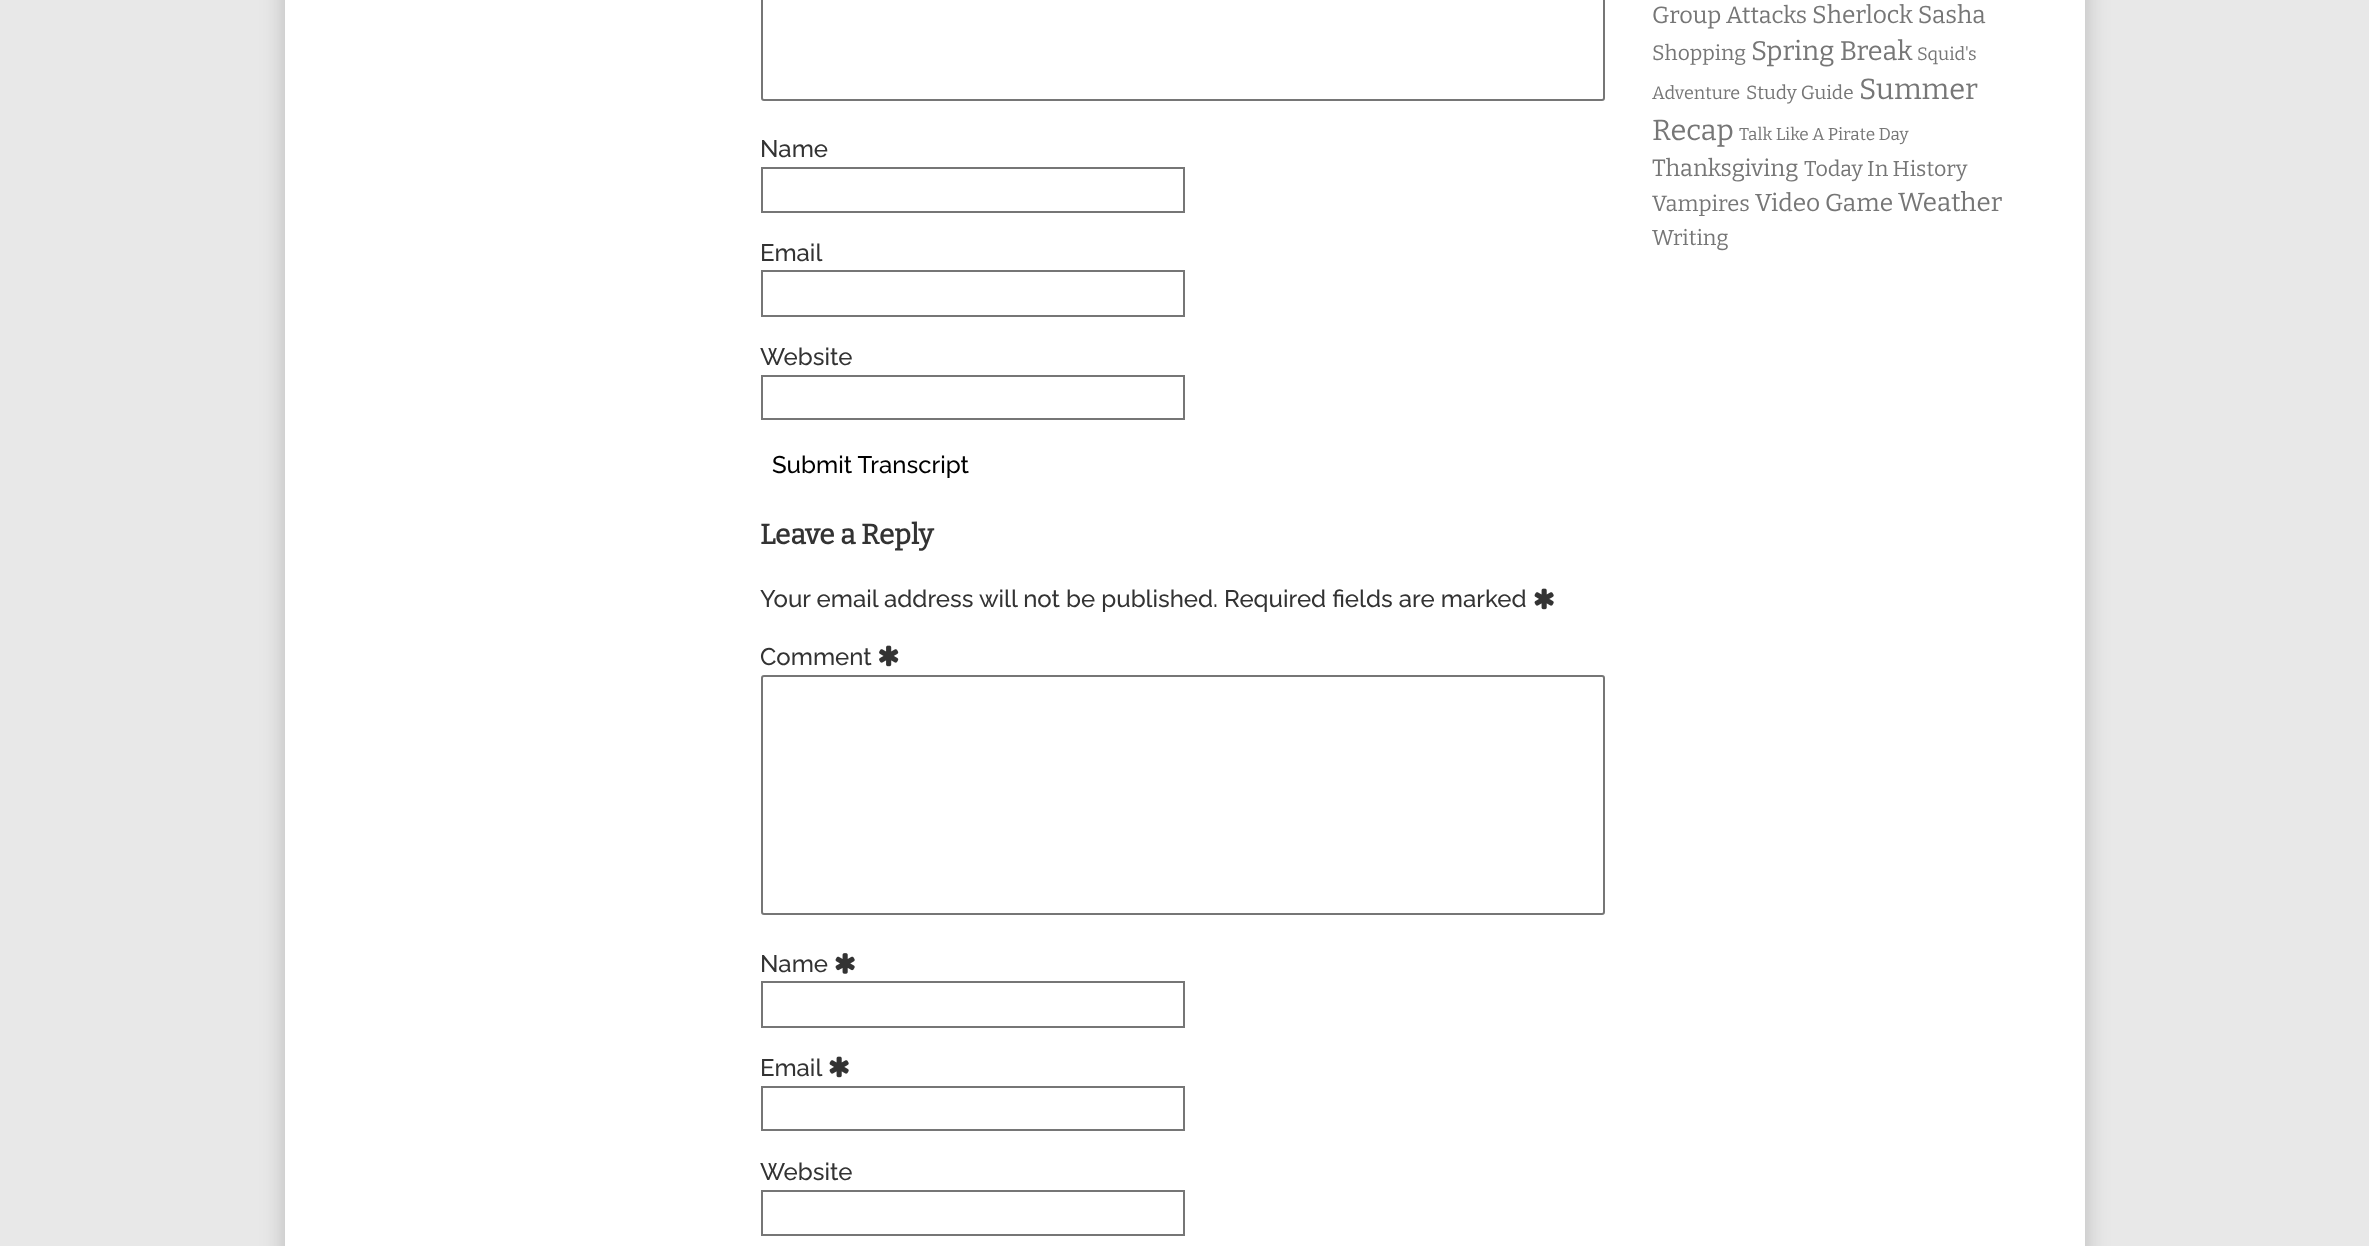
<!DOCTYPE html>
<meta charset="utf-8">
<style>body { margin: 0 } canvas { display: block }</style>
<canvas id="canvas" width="2369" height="1246"></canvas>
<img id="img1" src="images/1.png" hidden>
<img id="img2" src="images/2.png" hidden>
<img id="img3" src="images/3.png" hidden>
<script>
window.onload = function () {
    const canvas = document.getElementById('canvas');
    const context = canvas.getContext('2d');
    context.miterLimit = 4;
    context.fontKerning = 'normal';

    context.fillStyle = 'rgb(232, 232, 232)';
    context.fillRect(0, 0, 2369, 1246);
    context.fillStyle = 'rgba(0, 0, 0, 0.2)';
    context.filter = 'blur(12px)';
    context.beginPath();
    context.rect(285, -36, 1800, 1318);
    context.fill();
    context.filter = 'none';
    context.fillStyle = 'rgb(255, 255, 255)';
    context.fillRect(285, 0, 1800, 1246);
    context.beginPath();
    context.roundRect(762, -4, 842, 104, 2);
    context.strokeStyle = 'rgb(118, 118, 118)';
    context.lineWidth = 2;
    context.stroke();
    context.strokeRect(762, 168, 422, 44);
    context.strokeRect(762, 271, 422, 45);
    context.strokeRect(762, 376, 422, 43);
    context.drawImage(document.getElementById('img1'), 1534, 588, 20, 22);
    context.drawImage(document.getElementById('img2'), 879, 645, 20, 22);
    context.beginPath();
    context.roundRect(762, 676, 842, 238, 2);
    context.stroke();
    context.drawImage(document.getElementById('img3'), 835, 953, 20, 21);
    context.strokeRect(762, 982, 422, 45);
    context.drawImage(document.getElementById('img1'), 829, 1056, 20, 22);
    context.strokeRect(762, 1087, 422, 43);
    context.strokeRect(762, 1191, 422, 44);
    context.font = '100 24px Raleway';
    context.fillStyle = 'rgb(51, 51, 51)';
    context.fillText('Name', 760, 157);
    context.fillText('Email', 760, 261);
    context.fillText('Website', 760, 365);
    context.fillStyle = 'rgb(0, 0, 0)';
    context.fillText('Submit Transcript', 772, 473);
    context.font = 'bold 28px Bitter';
    context.fillStyle = 'rgb(51, 51, 51)';
    context.fillText('Leave a Reply', 760, 544);
    context.font = '100 24px Raleway';
    context.fillText('Your email address will not be published. Required fields are marked', 760, 607);
    context.fillText('Comment', 760, 665);
    context.fillText('Name', 760, 972);
    context.fillText('Email', 760, 1076);
    context.fillText('Website', 760, 1180);
    context.font = '100 23.5px Bitter';
    context.fillStyle = 'rgb(118, 118, 118)';
    context.fillText('Group Attacks', 1652, 23);
    context.font = '100 24.5px Bitter';
    context.fillText('Sherlock Sasha', 1812, 23);
    context.font = '100 21px Bitter';
    context.fillText('Shopping', 1652, 60);
    context.font = '100 27px Bitter';
    context.fillText('Spring Break', 1751, 60);
    context.font = '100 18px Bitter';
    context.fillText('Squid\'s', 1917, 60);
    context.fillText('Adventure', 1652, 99);
    context.font = '100 19px Bitter';
    context.fillText('Study Guide', 1746, 99);
    context.font = '100 29px Bitter';
    context.fillText('Summer', 1859, 99);
    context.fillText('Recap', 1652, 140);
    context.font = '100 17.25px Bitter';
    context.fillText('Talk Like A Pirate Day', 1739, 140);
    context.font = '100 23.5px Bitter';
    context.fillText('Thanksgiving', 1652, 176);
    context.font = '100 21.5px Bitter';
    context.fillText('Today In History', 1804, 176);
    context.font = '100 22px Bitter';
    context.fillText('Vampires', 1652, 211);
    context.font = '100 24.5px Bitter';
    context.fillText('Video Game', 1755, 211);
    context.font = '100 26px Bitter';
    context.fillText('Weather', 1898, 211);
    context.font = '100 21.5px Bitter';
    context.fillText('Writing', 1652, 245);
};
</script>
